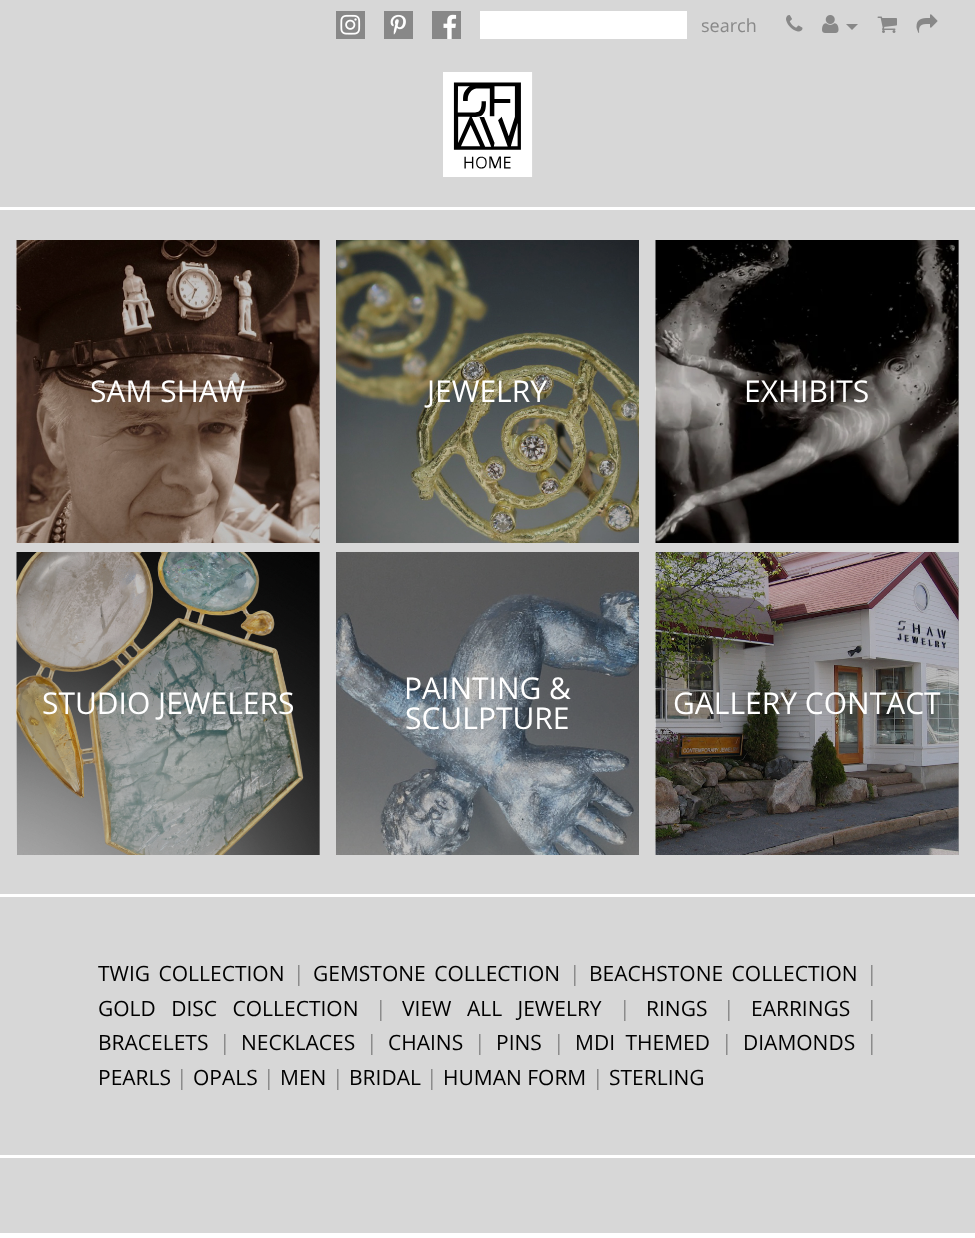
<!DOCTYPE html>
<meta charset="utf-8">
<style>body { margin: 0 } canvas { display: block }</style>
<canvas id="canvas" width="975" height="1238"></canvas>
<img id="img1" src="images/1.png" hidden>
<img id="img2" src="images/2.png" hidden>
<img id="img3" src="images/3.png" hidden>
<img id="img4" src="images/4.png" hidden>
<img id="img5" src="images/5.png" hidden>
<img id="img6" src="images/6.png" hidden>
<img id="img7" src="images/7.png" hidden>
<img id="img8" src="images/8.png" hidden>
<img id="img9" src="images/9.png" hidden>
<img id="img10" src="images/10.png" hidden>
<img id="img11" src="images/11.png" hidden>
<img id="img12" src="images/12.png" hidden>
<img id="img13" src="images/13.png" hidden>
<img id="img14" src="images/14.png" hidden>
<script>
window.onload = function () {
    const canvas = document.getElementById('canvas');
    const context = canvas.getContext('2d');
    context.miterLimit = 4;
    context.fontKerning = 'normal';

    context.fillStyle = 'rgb(215, 215, 215)';
    context.fillRect(0, 0, 975, 1238);
    context.fillStyle = 'rgb(163, 163, 163)';
    context.fillRect(958, 552, 1, 303);
    context.fillRect(319, 552, 1, 303);
    context.fillRect(958, 240, 1, 303);
    context.fillRect(319, 240, 1, 303);
    context.drawImage(document.getElementById('img1'), 336, 11, 29, 28);
    context.drawImage(document.getElementById('img2'), 384, 11, 29, 28);
    context.drawImage(document.getElementById('img3'), 432, 11, 29, 28);
    context.fillStyle = 'rgb(255, 255, 255)';
    context.fillRect(480, 11, 207, 28);
    context.drawImage(document.getElementById('img4'), 786, 15, 17, 17);
    context.drawImage(document.getElementById('img5'), 822, 15, 17, 18);
    context.fillStyle = 'rgb(136, 136, 136)';
    context.beginPath();
    context.moveTo(846, 24);
    context.lineTo(858, 24);
    context.lineTo(852, 30);
    context.closePath();
    context.fill();
    context.drawImage(document.getElementById('img6'), 877, 16, 20, 17);
    context.drawImage(document.getElementById('img7'), 916, 14, 22, 19);
    context.drawImage(document.getElementById('img8'), 443, 72, 90, 105);
    context.fillStyle = 'rgb(255, 255, 255)';
    context.fillRect(0, 207, 975, 3);
    context.drawImage(document.getElementById('img9'), 16, 240, 304, 303);
    context.drawImage(document.getElementById('img10'), 336, 240, 303, 303);
    context.drawImage(document.getElementById('img11'), 655, 240, 304, 303);
    context.drawImage(document.getElementById('img12'), 16, 552, 304, 303);
    context.drawImage(document.getElementById('img13'), 336, 552, 303, 303);
    context.drawImage(document.getElementById('img14'), 655, 552, 304, 303);
    context.fillRect(0, 894, 975, 3);
    context.fillRect(0, 1155, 975, 3);
    context.fillRect(0, 1233, 975, 5);
    context.font = '18px Open Sans';
    context.fillStyle = 'rgb(136, 136, 136)';
    context.fillText('search', 701, 32);
    context.font = '30px Open Sans';
    context.fillStyle = 'rgb(255, 255, 255)';
    context.fillText('SAM SHAW', 90, 402);
    context.fillText('JEWELRY', 427, 402);
    context.fillText('EXHIBITS', 744, 402);
    context.fillText('STUDIO JEWELERS', 42, 714);
    context.fillText('PAINTING &', 404, 699);
    context.fillText('SCULPTURE', 405, 729);
    context.fillText('GALLERY CONTACT', 673, 714);
    context.wordSpacing = '3px';
    context.font = '21px Open Sans';
    context.fillStyle = 'rgb(0, 0, 0)';
    context.fillText('TWIG COLLECTION', 98, 981);
    context.wordSpacing = '0px';
    context.fillStyle = 'rgb(136, 136, 136)';
    context.fillText('|', 293, 981);
    context.wordSpacing = '3px';
    context.fillStyle = 'rgb(0, 0, 0)';
    context.fillText('GEMSTONE COLLECTION', 313, 981);
    context.wordSpacing = '0px';
    context.fillStyle = 'rgb(136, 136, 136)';
    context.fillText('|', 569, 981);
    context.wordSpacing = '3px';
    context.fillStyle = 'rgb(0, 0, 0)';
    context.fillText('BEACHSTONE COLLECTION', 589, 981);
    context.wordSpacing = '0px';
    context.fillStyle = 'rgb(136, 136, 136)';
    context.fillText('|', 866, 981);
    context.wordSpacing = '10px';
    context.fillStyle = 'rgb(0, 0, 0)';
    context.fillText('GOLD DISC COLLECTION', 98, 1016);
    context.wordSpacing = '0px';
    context.fillStyle = 'rgb(136, 136, 136)';
    context.fillText('|', 375, 1016);
    context.wordSpacing = '10px';
    context.fillStyle = 'rgb(0, 0, 0)';
    context.fillText('VIEW ALL JEWELRY', 402, 1016);
    context.wordSpacing = '0px';
    context.fillStyle = 'rgb(136, 136, 136)';
    context.fillText('|', 619, 1016);
    context.fillStyle = 'rgb(0, 0, 0)';
    context.fillText('RINGS', 646, 1016);
    context.fillStyle = 'rgb(136, 136, 136)';
    context.fillText('|', 723, 1016);
    context.fillStyle = 'rgb(0, 0, 0)';
    context.fillText('EARRINGS', 751, 1016);
    context.fillStyle = 'rgb(136, 136, 136)';
    context.fillText('|', 866, 1016);
    context.fillStyle = 'rgb(0, 0, 0)';
    context.fillText('BRACELETS', 98, 1050);
    context.fillStyle = 'rgb(136, 136, 136)';
    context.fillText('|', 219, 1050);
    context.fillStyle = 'rgb(0, 0, 0)';
    context.fillText('NECKLACES', 241, 1050);
    context.fillStyle = 'rgb(136, 136, 136)';
    context.fillText('|', 366, 1050);
    context.fillStyle = 'rgb(0, 0, 0)';
    context.fillText('CHAINS', 388, 1050);
    context.fillStyle = 'rgb(136, 136, 136)';
    context.fillText('|', 474, 1050);
    context.fillStyle = 'rgb(0, 0, 0)';
    context.fillText('PINS', 496, 1050);
    context.fillStyle = 'rgb(136, 136, 136)';
    context.fillText('|', 553, 1050);
    context.wordSpacing = '5px';
    context.fillStyle = 'rgb(0, 0, 0)';
    context.fillText('MDI THEMED', 575, 1050);
    context.wordSpacing = '0px';
    context.fillStyle = 'rgb(136, 136, 136)';
    context.fillText('|', 721, 1050);
    context.fillStyle = 'rgb(0, 0, 0)';
    context.fillText('DIAMONDS', 743, 1050);
    context.fillStyle = 'rgb(136, 136, 136)';
    context.fillText('|', 866, 1050);
    context.fillStyle = 'rgb(0, 0, 0)';
    context.fillText('PEARLS', 98, 1085);
    context.fillStyle = 'rgb(136, 136, 136)';
    context.fillText('|', 176, 1085);
    context.fillStyle = 'rgb(0, 0, 0)';
    context.fillText('OPALS', 193, 1085);
    context.fillStyle = 'rgb(136, 136, 136)';
    context.fillText('|', 263, 1085);
    context.fillStyle = 'rgb(0, 0, 0)';
    context.fillText('MEN', 280, 1085);
    context.fillStyle = 'rgb(136, 136, 136)';
    context.fillText('|', 332, 1085);
    context.fillStyle = 'rgb(0, 0, 0)';
    context.fillText('BRIDAL', 349, 1085);
    context.fillStyle = 'rgb(136, 136, 136)';
    context.fillText('|', 426, 1085);
    context.fillStyle = 'rgb(0, 0, 0)';
    context.fillText('HUMAN FORM', 443, 1085);
    context.fillStyle = 'rgb(136, 136, 136)';
    context.fillText('|', 592, 1085);
    context.fillStyle = 'rgb(0, 0, 0)';
    context.fillText('STERLING', 609, 1085);
};
</script>
